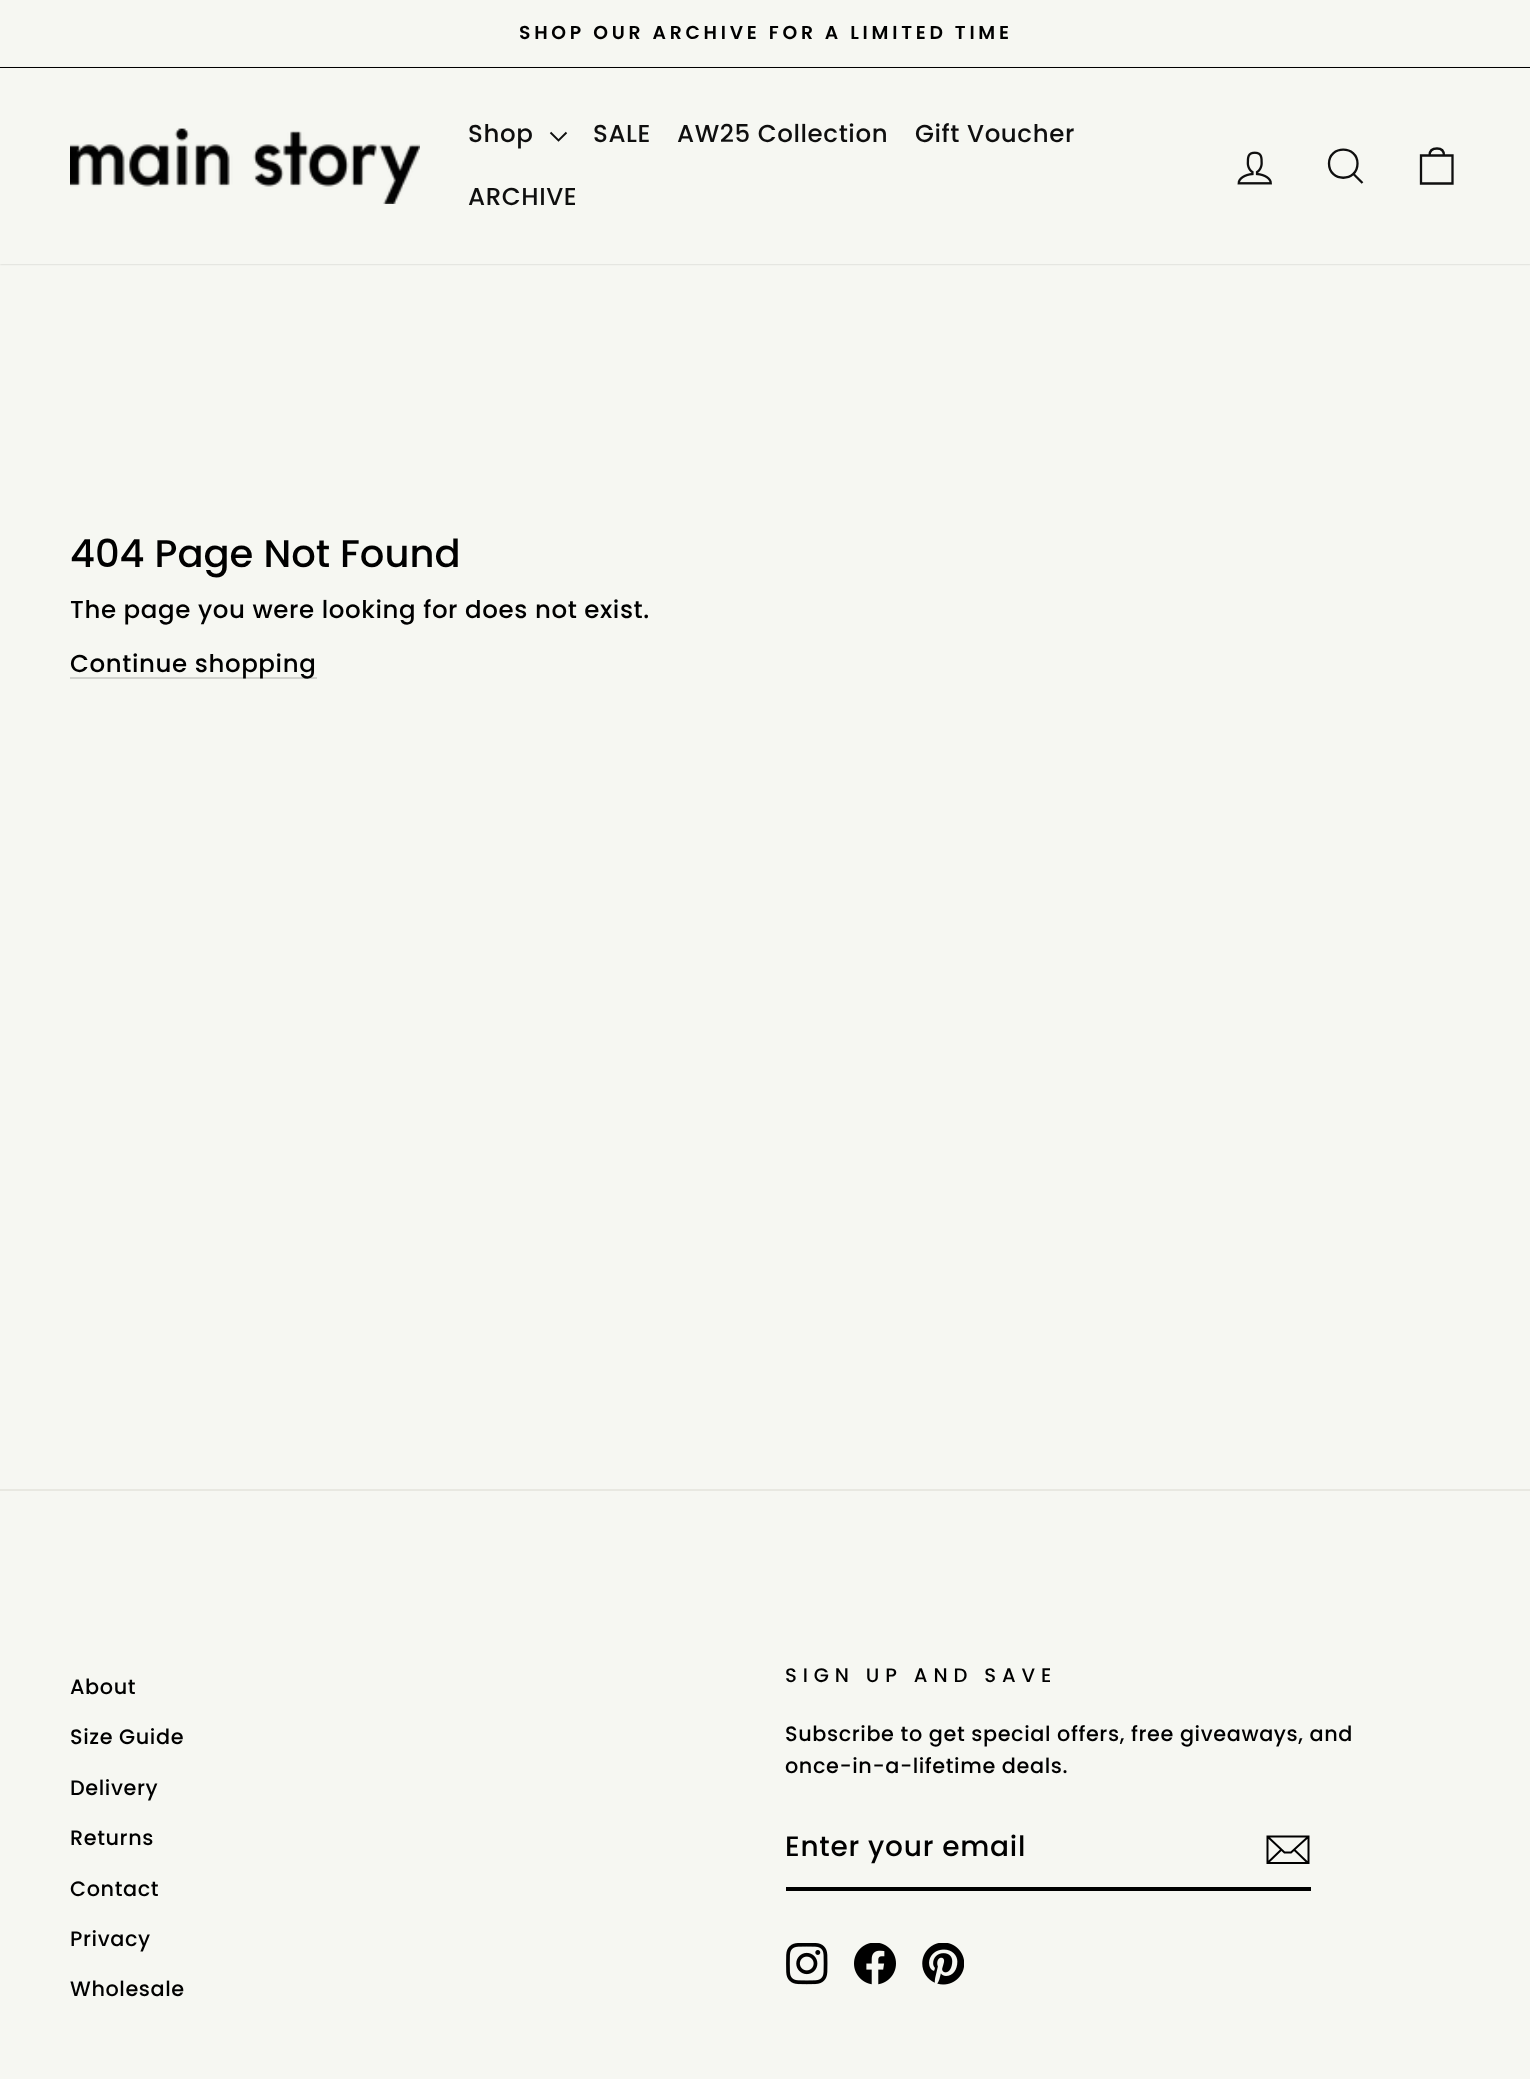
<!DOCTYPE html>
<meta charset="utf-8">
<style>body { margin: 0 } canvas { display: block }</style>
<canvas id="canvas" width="1530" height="2079"></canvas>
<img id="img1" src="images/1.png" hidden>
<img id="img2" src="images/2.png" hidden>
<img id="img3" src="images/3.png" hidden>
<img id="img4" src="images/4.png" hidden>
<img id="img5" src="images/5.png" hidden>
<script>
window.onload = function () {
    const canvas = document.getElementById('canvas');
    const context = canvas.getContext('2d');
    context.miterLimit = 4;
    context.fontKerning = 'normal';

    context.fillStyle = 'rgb(246, 247, 242)';
    context.fillRect(0, 0, 1530, 2079);
    context.fillStyle = 'rgb(0, 0, 0)';
    context.fillRect(0, 67, 1530, 1);
    context.fillStyle = 'rgba(0, 0, 0, 0.2)';
    context.filter = 'blur(1px)';
    context.beginPath();
    context.rect(0, 68, 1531, 196);
    context.fill();
    context.filter = 'none';
    context.fillStyle = 'rgb(246, 247, 242)';
    context.fillRect(0, 68, 1530, 196);
    context.drawImage(document.getElementById('img1'), 70, 128, 350, 76);
    context.beginPath();
    context.moveTo(550.5, 132.5);
    context.lineTo(558.5, 140.5);
    context.lineTo(566.5, 132.5);
    context.strokeStyle = 'rgb(15, 15, 15)';
    context.lineWidth = 1.9;
    context.stroke();
    context.drawImage(document.getElementById('img2'), 1237, 151, 35, 34);
    context.beginPath();
    context.moveTo(1357.5, 163.5);
    context.bezierCurveTo(1357.5, 182.5, 1329, 182.5, 1329, 163.5);
    context.bezierCurveTo(1329, 145, 1357.5, 145, 1357.5, 163.5);
    context.closePath();
    context.moveTo(1362.5, 183);
    context.lineTo(1353.5, 174);
    context.lineWidth = 2.3;
    context.stroke();
    context.beginPath();
    context.moveTo(1421, 155.5);
    context.lineTo(1452.5, 155.5);
    context.lineTo(1452.5, 183.5);
    context.lineTo(1421, 183.5);
    context.closePath();
    context.moveTo(1429.5, 155.5);
    context.bezierCurveTo(1429.5, 150, 1432.5, 148.5, 1437, 148.5);
    context.bezierCurveTo(1441, 148.5, 1444, 150, 1444, 155.5);
    context.stroke();
    context.fillStyle = 'rgb(209, 210, 206)';
    context.fillRect(70, 677, 247, 2);
    context.fillStyle = 'rgb(232, 232, 225)';
    context.fillRect(0, 1489, 1530, 2);
    context.fillStyle = 'rgb(0, 0, 0)';
    context.fillRect(786, 1887, 525, 4);
    context.beginPath();
    context.moveTo(1308.5, 1863);
    context.lineTo(1267.5, 1863);
    context.lineTo(1267.5, 1836.5);
    context.lineTo(1308.5, 1836.5);
    context.closePath();
    context.moveTo(1267.5, 1836.5);
    context.lineTo(1284.5, 1852.5);
    context.lineTo(1291, 1852.5);
    context.lineTo(1308.5, 1836.5);
    context.moveTo(1281.5, 1849.5);
    context.lineTo(1268, 1862.5);
    context.moveTo(1308, 1863);
    context.lineTo(1294, 1849.5);
    context.strokeStyle = 'rgb(0, 0, 0)';
    context.lineWidth = 2;
    context.stroke();
    context.drawImage(document.getElementById('img3'), 786, 1943, 42, 42);
    context.drawImage(document.getElementById('img4'), 854, 1943, 42, 42);
    context.drawImage(document.getElementById('img5'), 922, 1943, 42, 42);
    context.letterSpacing = '3.75px';
    context.font = '600 18.75px Poppins';
    context.fillText('SHOP OUR ARCHIVE FOR A LIMITED TIME', 519, 39);
    context.letterSpacing = '0.6px';
    context.font = '500 24.5px Poppins';
    context.fillStyle = 'rgb(15, 15, 15)';
    context.fillText('Shop', 468, 142);
    context.fillText('SALE', 593, 142);
    context.fillText('AW25 Collection', 677, 142);
    context.fillText('Gift Voucher', 915, 142);
    context.fillText('ARCHIVE', 468, 205);
    context.letterSpacing = '0px';
    context.font = '500 38.5px Poppins';
    context.fillStyle = 'rgb(0, 0, 0)';
    context.fillText('404 Page Not Found', 70, 567);
    context.letterSpacing = '0.6px';
    context.font = '500 24.5px Poppins';
    context.fillText('The page you were looking for does not exist.', 70, 618);
    context.fillText('Continue shopping', 70, 672);
    context.font = '500 20.8px Poppins';
    context.fillText('About', 70, 1694);
    context.fillText('Size Guide', 70, 1744);
    context.fillText('Delivery', 70, 1795);
    context.fillText('Returns', 70, 1845);
    context.fillText('Contact', 70, 1896);
    context.fillText('Privacy', 70, 1946);
    context.fillText('Wholesale', 70, 1996);
    context.letterSpacing = '5.9px';
    context.font = '500 19.6px Poppins';
    context.fillText('SIGN UP AND SAVE', 785, 1682);
    context.letterSpacing = '0.6px';
    context.font = '500 20.8px Poppins';
    context.fillText('Subscribe to get special offers, free giveaways, and', 785, 1741);
    context.fillText('once-in-a-lifetime deals.', 785, 1773);
    context.letterSpacing = '0.75px';
    context.font = '500 28px Poppins';
    context.fillText('Enter your email', 785, 1856);
};
</script>
